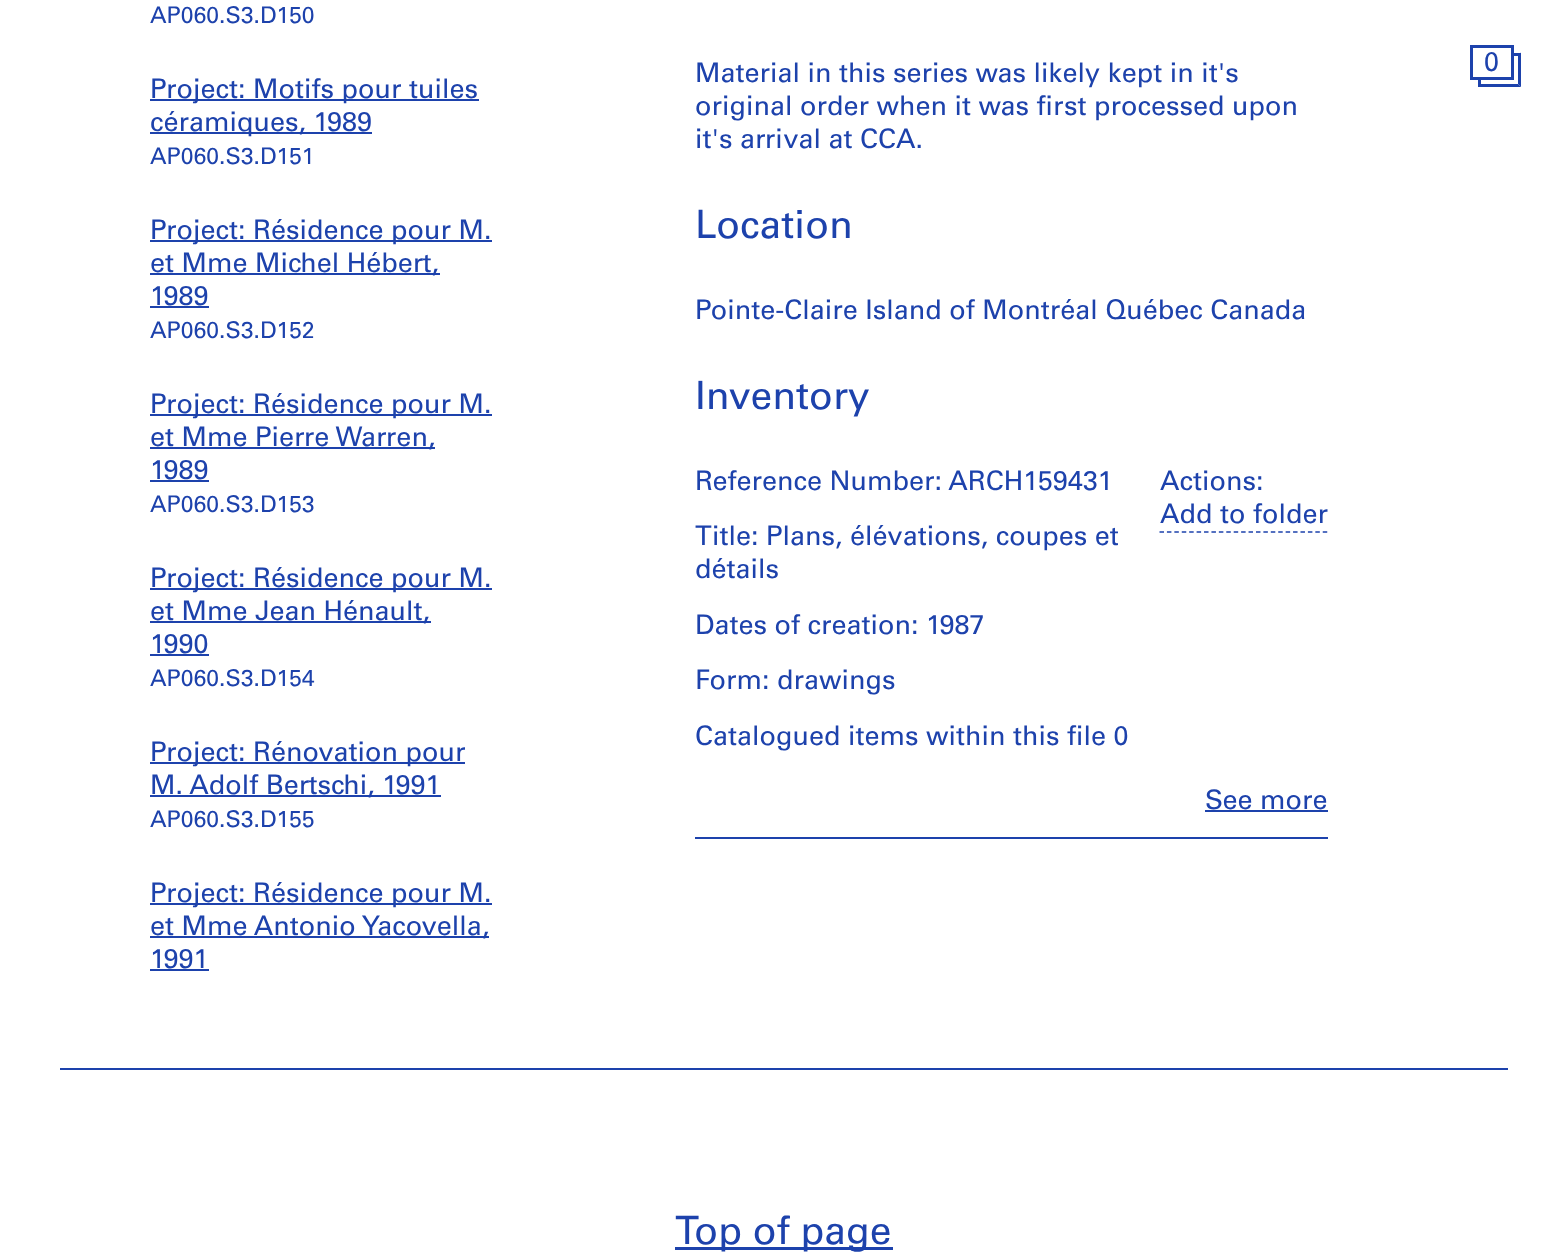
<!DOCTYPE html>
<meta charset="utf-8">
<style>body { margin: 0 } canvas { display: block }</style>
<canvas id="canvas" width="1567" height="1258"></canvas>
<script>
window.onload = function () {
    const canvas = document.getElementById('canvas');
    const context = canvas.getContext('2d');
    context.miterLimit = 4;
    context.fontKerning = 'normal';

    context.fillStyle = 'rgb(255, 255, 255)';
    context.fillRect(0, 0, 1567, 1258);
    context.fillStyle = 'rgb(29, 66, 172)';
    context.fillRect(150, 99, 329, 2);
    context.fillRect(150, 132, 222, 2);
    context.fillRect(150, 240, 342, 2);
    context.fillRect(150, 273, 290, 2);
    context.fillRect(150, 306, 59, 2);
    context.fillRect(150, 414, 342, 2);
    context.fillRect(150, 447, 285, 2);
    context.fillRect(150, 480, 59, 2);
    context.fillRect(150, 588, 342, 2);
    context.fillRect(150, 621, 281, 2);
    context.fillRect(150, 654, 59, 2);
    context.fillRect(150, 762, 315, 2);
    context.fillRect(150, 795, 291, 2);
    context.fillRect(150, 903, 342, 2);
    context.fillRect(150, 936, 339, 2);
    context.fillRect(150, 969, 59, 2);
    context.beginPath();
    context.moveTo(1159.5, 532);
    context.lineTo(1327.5, 532);
    context.strokeStyle = 'rgb(29, 66, 172)';
    context.lineWidth = 1.5;
    context.setLineDash([4.5, 2.92]);
    context.stroke();
    context.fillRect(1205, 810, 123, 2);
    context.fillRect(695, 837, 633, 2);
    context.beginPath();
    context.moveTo(1521, 52.5);
    context.lineTo(1521, 87);
    context.lineTo(1518, 84);
    context.lineTo(1518, 55.5);
    context.closePath();
    context.fill();
    context.fillRect(1512, 53, 9, 3);
    context.lineWidth = 3;
    context.setLineDash([]);
    context.strokeRect(1471.5, 46.5, 41, 32);
    context.beginPath();
    context.moveTo(1521, 87);
    context.lineTo(1478, 87);
    context.lineTo(1480, 84);
    context.lineTo(1518, 84);
    context.closePath();
    context.fill();
    context.fillRect(1478, 80, 3, 7);
    context.fillRect(60, 1068, 1448, 2);
    context.fillRect(675, 1247, 218, 3);
    context.font = '23px Univers';
    context.fillText('AP060.S3.D150', 150, 23);
    context.font = '27px Univers';
    context.fillText('Project: Motifs pour tuiles', 150, 98);
    context.fillText('céramiques, 1989', 150, 131);
    context.font = '23px Univers';
    context.fillText('AP060.S3.D151', 150, 164);
    context.font = '27px Univers';
    context.fillText('Project: Résidence pour M.', 150, 239);
    context.fillText('et Mme Michel Hébert,', 150, 272);
    context.fillText('1989', 150, 305);
    context.font = '23px Univers';
    context.fillText('AP060.S3.D152', 150, 338);
    context.font = '27px Univers';
    context.fillText('Project: Résidence pour M.', 150, 413);
    context.fillText('et Mme Pierre Warren,', 150, 446);
    context.fillText('1989', 150, 479);
    context.font = '23px Univers';
    context.fillText('AP060.S3.D153', 150, 512);
    context.font = '27px Univers';
    context.fillText('Project: Résidence pour M.', 150, 587);
    context.fillText('et Mme Jean Hénault,', 150, 620);
    context.fillText('1990', 150, 653);
    context.font = '23px Univers';
    context.fillText('AP060.S3.D154', 150, 686);
    context.font = '27px Univers';
    context.fillText('Project: Rénovation pour', 150, 761);
    context.fillText('M. Adolf Bertschi, 1991', 150, 794);
    context.font = '23px Univers';
    context.fillText('AP060.S3.D155', 150, 827);
    context.font = '27px Univers';
    context.fillText('Project: Résidence pour M.', 150, 902);
    context.fillText('et Mme Antonio Yacovella,', 150, 935);
    context.fillText('1991', 150, 968);
    context.fillText('Material in this series was likely kept in it\'s', 695, 82);
    context.fillText('original order when it was first processed upon', 695, 115);
    context.fillText('it\'s arrival at CCA.', 695, 148);
    context.font = '39px Univers';
    context.fillText('Location', 695, 238);
    context.font = '27px Univers';
    context.fillText('Pointe-Claire Island of Montréal Québec Canada', 695, 319);
    context.font = '39px Univers';
    context.fillText('Inventory', 695, 409);
    context.font = '27px Univers';
    context.fillText('Reference Number: ARCH159431', 695, 490);
    context.fillText('Title: Plans, élévations, coupes et', 695, 545);
    context.fillText('détails', 695, 578);
    context.fillText('Dates of creation: 1987', 695, 634);
    context.fillText('Form: drawings', 695, 689);
    context.fillText('Catalogued items within this file 0', 695, 745);
    context.fillText('Actions:', 1160, 490);
    context.fillText('Add to folder', 1160, 523);
    context.fillText('See more', 1205, 809);
    context.fillText('0', 1484, 71);
    context.font = '39px Univers';
    context.fillText('Top of page', 675, 1244);
};
</script>
